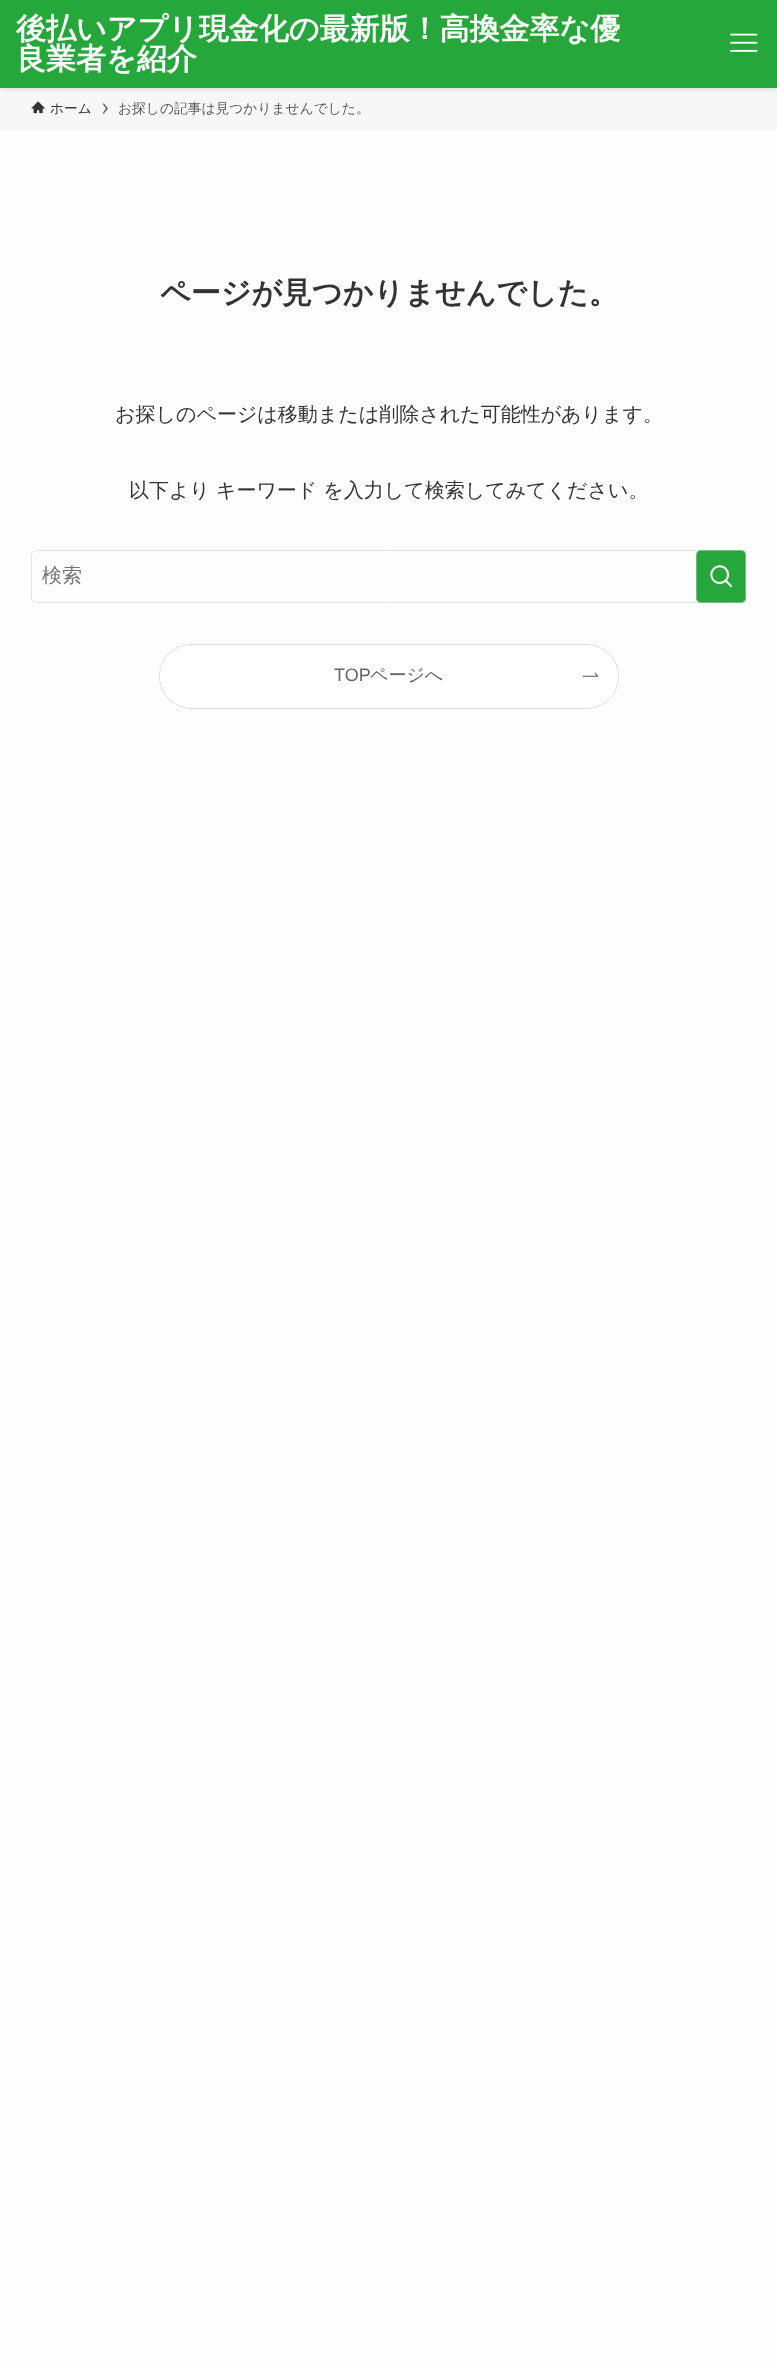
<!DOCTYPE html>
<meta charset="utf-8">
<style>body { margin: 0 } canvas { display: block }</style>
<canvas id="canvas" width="777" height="2362"></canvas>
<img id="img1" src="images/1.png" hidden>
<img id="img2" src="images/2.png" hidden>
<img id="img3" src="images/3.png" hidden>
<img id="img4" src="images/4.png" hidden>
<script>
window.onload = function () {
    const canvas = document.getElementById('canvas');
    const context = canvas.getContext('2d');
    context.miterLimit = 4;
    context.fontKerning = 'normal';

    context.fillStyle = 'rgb(253, 253, 253)';
    context.fillRect(0, 0, 777, 2362);
    context.fillStyle = 'rgb(247, 247, 247)';
    context.fillRect(0, 88, 777, 42);
    context.fillStyle = 'rgba(0, 0, 0, 0.12)';
    context.filter = 'blur(2.5px)';
    context.beginPath();
    context.rect(0, 1, 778, 88);
    context.fill();
    context.filter = 'none';
    context.fillStyle = 'rgb(38, 167, 60)';
    context.fillRect(0, 0, 777, 88);
    context.drawImage(document.getElementById('img1'), 730, 33, 28, 19);
    context.drawImage(document.getElementById('img2'), 31, 101, 14, 13);
    context.fillStyle = 'rgb(90, 90, 90)';
    context.beginPath();
    context.moveTo(104, 103.5);
    context.lineTo(102.5, 103.5);
    context.lineTo(106, 108.5);
    context.lineTo(102.5, 113.5);
    context.lineTo(104, 113.5);
    context.lineTo(108, 108.5);
    context.closePath();
    context.fill();
    context.beginPath();
    context.roundRect(31.5, 550.5, 714, 52, 4.5);
    context.strokeStyle = 'rgb(227, 227, 227)';
    context.stroke();
    context.fillStyle = 'rgb(38, 167, 60)';
    context.beginPath();
    context.roundRect(696, 550, 50, 53, 5);
    context.fill();
    context.beginPath();
    context.roundRect(696.5, 550.5, 49, 52, 4.5);
    context.strokeStyle = 'rgba(199, 199, 199, 0.5)';
    context.stroke();
    context.drawImage(document.getElementById('img3'), 710, 565, 23, 23);
    context.beginPath();
    context.roundRect(159.5, 644.5, 459, 64, 32);
    context.strokeStyle = 'rgb(220, 220, 220)';
    context.stroke();
    context.fillStyle = 'rgb(255, 255, 255)';
    context.beginPath();
    context.roundRect(160, 645, 458, 63, 31.5);
    context.fill();
    context.drawImage(document.getElementById('img4'), 582, 672, 17, 5);
    context.font = 'bold 30px WenQuanYi Zen Hei';
    context.fillText('後払いアプリ現金化の最新版！高換金率な優', 16, 39);
    context.fillText('良業者を紹介', 16, 69);
    context.font = '500 13.75px WenQuanYi Zen Hei';
    context.fillStyle = 'rgb(51, 51, 51)';
    context.fillText('ホーム', 50, 113);
    context.fillStyle = 'rgb(90, 90, 90)';
    context.fillText('お探しの記事は見つかりませんでした。', 118, 113);
    context.font = 'bold 30px WenQuanYi Zen Hei';
    context.fillStyle = 'rgb(51, 51, 51)';
    context.fillText('ページが見つかりませんでした。', 160, 303);
    context.font = '500 20px WenQuanYi Zen Hei';
    context.fillText('お探しのページは移動または削除された可能性があります。', 115, 421);
    context.fillText('以下より キーワード を入力して検索してみてください。', 129, 497);
    context.fillStyle = 'rgb(117, 117, 117)';
    context.fillText('検索', 42, 582);
    context.font = '18px Liberation Sans';
    context.fillStyle = 'rgb(102, 102, 102)';
    context.fillText('TOP', 334, 681);
    context.font = '500 18px WenQuanYi Zen Hei';
    context.fillText('ページへ', 370, 681);
};
</script>
